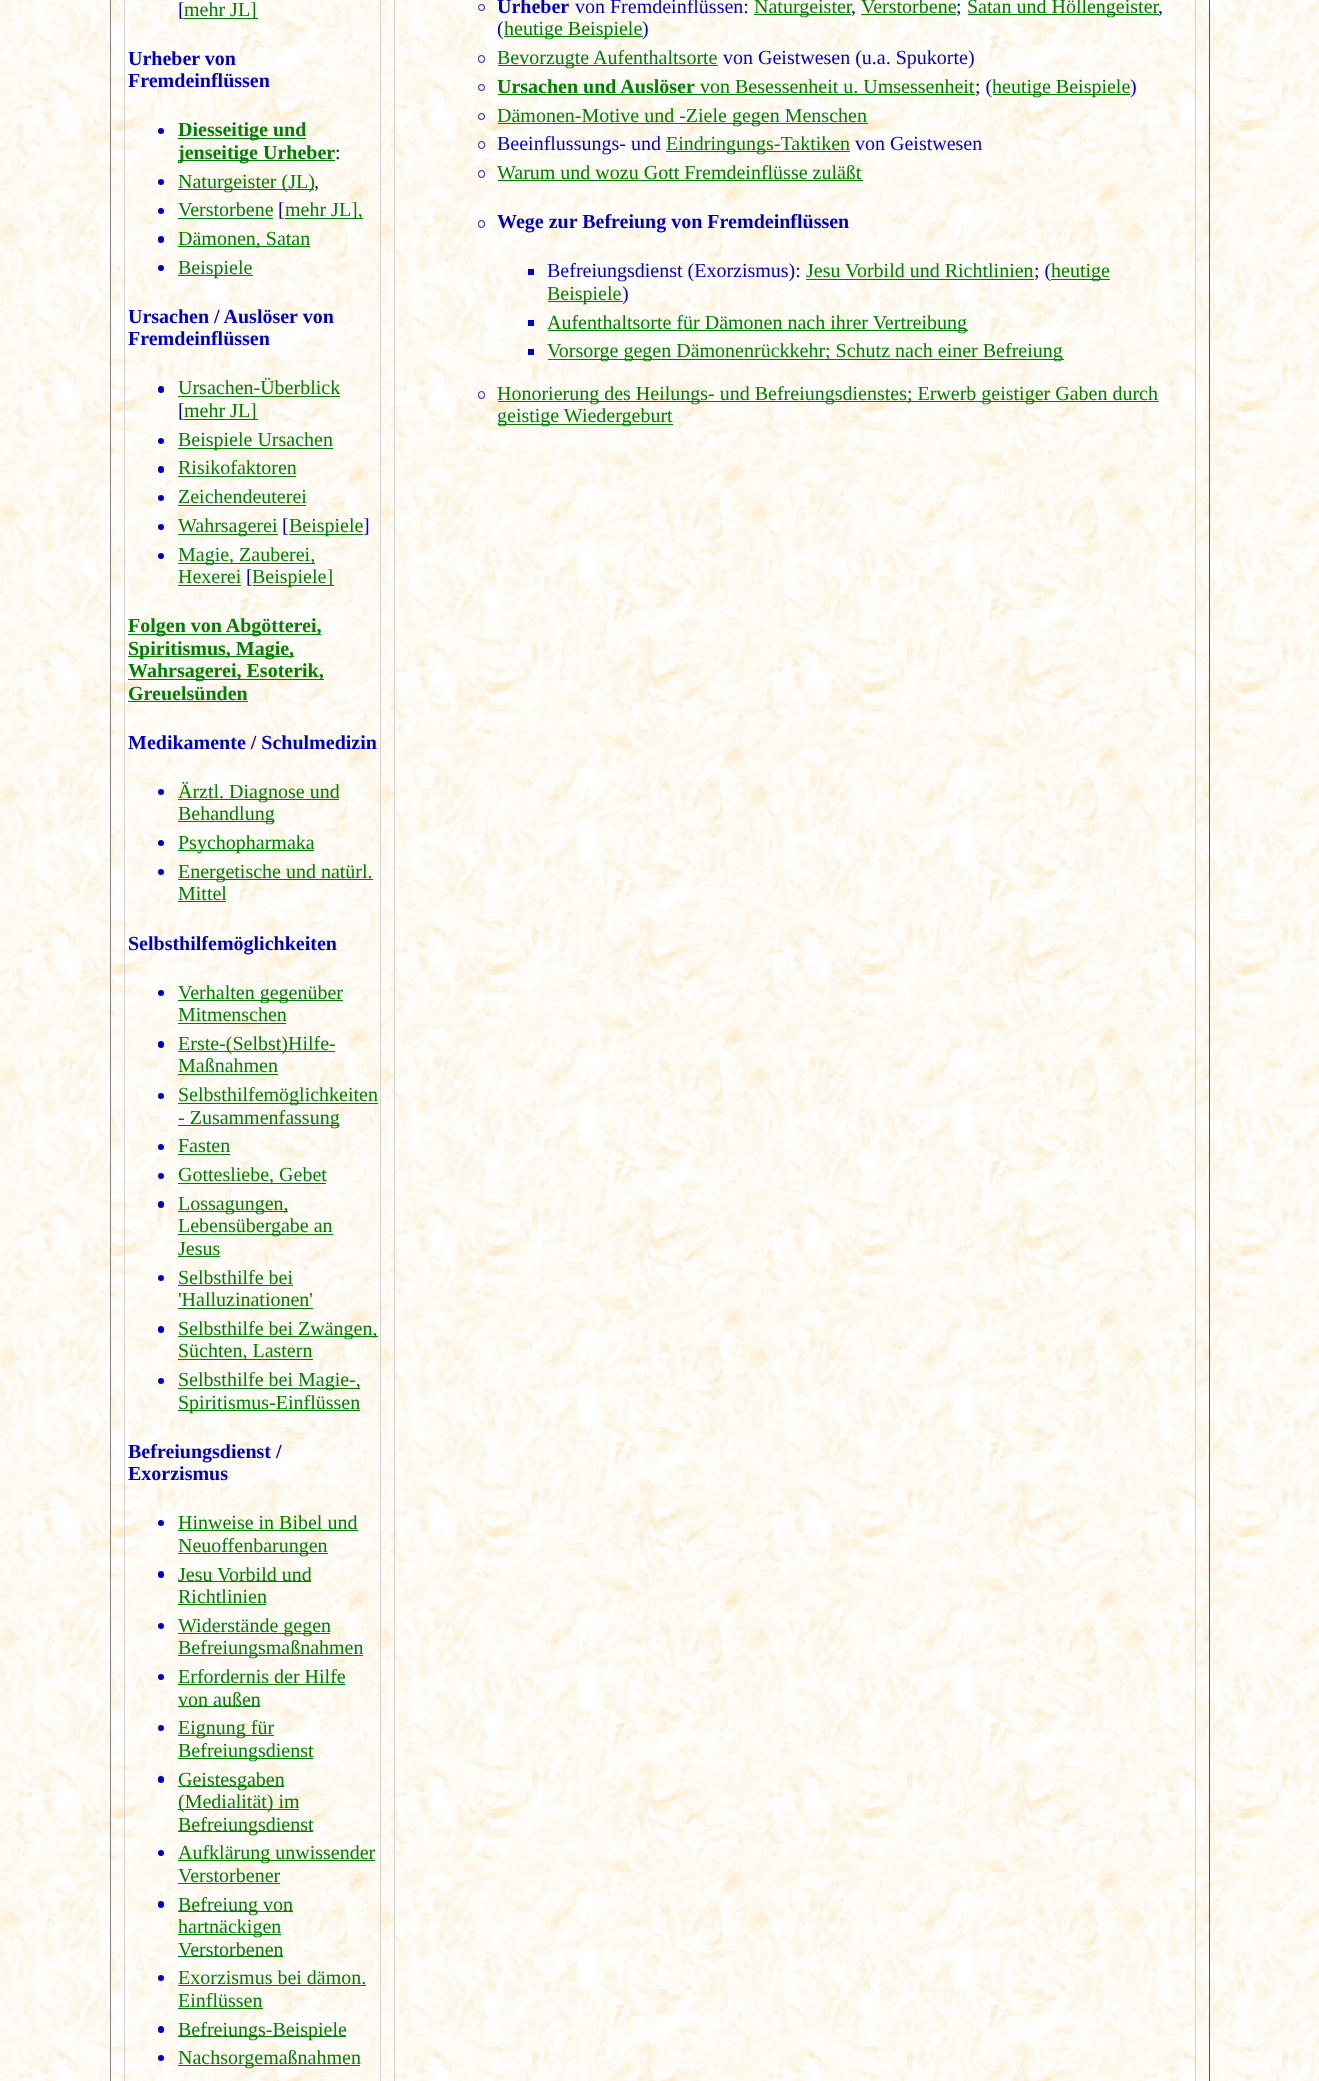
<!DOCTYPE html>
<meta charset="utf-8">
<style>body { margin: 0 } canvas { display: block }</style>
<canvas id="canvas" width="1319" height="2081"></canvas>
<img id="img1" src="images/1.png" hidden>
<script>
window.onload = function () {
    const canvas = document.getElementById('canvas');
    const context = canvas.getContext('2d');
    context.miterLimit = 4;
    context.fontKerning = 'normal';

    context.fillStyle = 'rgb(255, 255, 255)';
    context.fillRect(0, 0, 1319, 2081);
    context.drawImage(document.getElementById('img1'), 0, 0, 1319, 2081);
    context.fillStyle = 'rgb(85, 85, 85)';
    context.fillRect(1209, 0, 1, 2081);
    context.fillStyle = 'rgb(128, 128, 128)';
    context.fillRect(110, 0, 1, 2081);
    context.strokeStyle = 'rgb(211, 211, 211)';
    context.strokeRect(124.5, -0.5, 256, 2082);
    context.fillStyle = 'rgb(0, 128, 0)';
    context.fillRect(184, 18, 74, 1);
    context.fillStyle = 'rgb(0, 0, 205)';
    context.beginPath();
    context.arc(161, 131, 3, 0, 2 * Math.PI);
    context.fill();
    context.fillStyle = 'rgb(0, 128, 0)';
    context.fillRect(178, 138, 128, 1);
    context.fillRect(178, 160, 157, 1);
    context.fillStyle = 'rgb(0, 0, 205)';
    context.beginPath();
    context.arc(161, 182, 3, 0, 2 * Math.PI);
    context.fill();
    context.fillStyle = 'rgb(0, 128, 0)';
    context.fillRect(178, 189, 136, 1);
    context.fillStyle = 'rgb(0, 0, 205)';
    context.beginPath();
    context.arc(161, 211, 3, 0, 2 * Math.PI);
    context.fill();
    context.fillStyle = 'rgb(0, 128, 0)';
    context.fillRect(178, 218, 95, 1);
    context.fillRect(285, 218, 78, 1);
    context.fillStyle = 'rgb(0, 0, 205)';
    context.beginPath();
    context.roundRect(158, 236, 6, 7, 3);
    context.fill();
    context.fillStyle = 'rgb(0, 128, 0)';
    context.fillRect(178, 246, 132, 1);
    context.fillStyle = 'rgb(0, 0, 205)';
    context.beginPath();
    context.arc(161, 268, 3, 0, 2 * Math.PI);
    context.fill();
    context.fillStyle = 'rgb(0, 128, 0)';
    context.fillRect(178, 275, 75, 1);
    context.fillStyle = 'rgb(0, 0, 205)';
    context.beginPath();
    context.roundRect(158, 386, 6, 7, 3);
    context.fill();
    context.fillStyle = 'rgb(0, 128, 0)';
    context.fillRect(178, 396, 162, 1);
    context.fillRect(184, 419, 74, 1);
    context.fillStyle = 'rgb(0, 0, 205)';
    context.beginPath();
    context.arc(161, 441, 3, 0, 2 * Math.PI);
    context.fill();
    context.fillStyle = 'rgb(0, 128, 0)';
    context.fillRect(178, 448, 155, 1);
    context.fillStyle = 'rgb(0, 0, 205)';
    context.beginPath();
    context.roundRect(158, 466, 6, 7, 3);
    context.fill();
    context.fillStyle = 'rgb(0, 128, 0)';
    context.fillRect(178, 476, 118, 1);
    context.fillStyle = 'rgb(0, 0, 205)';
    context.beginPath();
    context.arc(161, 498, 3, 0, 2 * Math.PI);
    context.fill();
    context.fillStyle = 'rgb(0, 128, 0)';
    context.fillRect(178, 505, 128, 1);
    context.fillStyle = 'rgb(0, 0, 205)';
    context.beginPath();
    context.arc(161, 527, 3, 0, 2 * Math.PI);
    context.fill();
    context.fillStyle = 'rgb(0, 128, 0)';
    context.fillRect(178, 534, 100, 1);
    context.fillRect(289, 534, 74, 1);
    context.fillStyle = 'rgb(0, 0, 205)';
    context.beginPath();
    context.arc(161, 556, 3, 0, 2 * Math.PI);
    context.fill();
    context.fillStyle = 'rgb(0, 128, 0)';
    context.fillRect(178, 563, 137, 1);
    context.fillRect(178, 585, 63, 1);
    context.fillRect(253, 585, 81, 1);
    context.fillRect(128, 634, 193, 1);
    context.fillRect(128, 656, 166, 1);
    context.fillRect(128, 679, 196, 1);
    context.fillRect(128, 701, 120, 1);
    context.fillStyle = 'rgb(0, 0, 205)';
    context.beginPath();
    context.arc(161, 792, 3, 0, 2 * Math.PI);
    context.fill();
    context.fillStyle = 'rgb(0, 128, 0)';
    context.fillRect(178, 799, 161, 1);
    context.fillRect(178, 821, 96, 1);
    context.fillStyle = 'rgb(0, 0, 205)';
    context.beginPath();
    context.arc(161, 843, 3, 0, 2 * Math.PI);
    context.fill();
    context.fillStyle = 'rgb(0, 128, 0)';
    context.fillRect(178, 850, 136, 1);
    context.fillStyle = 'rgb(0, 0, 205)';
    context.beginPath();
    context.arc(161, 872, 3, 0, 2 * Math.PI);
    context.fill();
    context.fillStyle = 'rgb(0, 128, 0)';
    context.fillRect(178, 879, 195, 1);
    context.fillRect(178, 901, 48, 1);
    context.fillStyle = 'rgb(0, 0, 205)';
    context.beginPath();
    context.arc(161, 993, 3, 0, 2 * Math.PI);
    context.fill();
    context.fillStyle = 'rgb(0, 128, 0)';
    context.fillRect(178, 1000, 165, 1);
    context.fillRect(178, 1023, 108, 1);
    context.fillStyle = 'rgb(0, 0, 205)';
    context.beginPath();
    context.roundRect(158, 1041, 6, 7, 3);
    context.fill();
    context.fillStyle = 'rgb(0, 128, 0)';
    context.fillRect(178, 1051, 157, 1);
    context.fillRect(178, 1074, 100, 1);
    context.fillStyle = 'rgb(0, 0, 205)';
    context.beginPath();
    context.arc(161, 1096, 3, 0, 2 * Math.PI);
    context.fill();
    context.fillStyle = 'rgb(0, 128, 0)';
    context.fillRect(178, 1103, 200, 1);
    context.fillRect(178, 1125, 161, 1);
    context.fillStyle = 'rgb(0, 0, 205)';
    context.beginPath();
    context.arc(161, 1147, 3, 0, 2 * Math.PI);
    context.fill();
    context.fillStyle = 'rgb(0, 128, 0)';
    context.fillRect(178, 1154, 52, 1);
    context.fillStyle = 'rgb(0, 0, 205)';
    context.beginPath();
    context.arc(161, 1176, 3, 0, 2 * Math.PI);
    context.fill();
    context.fillStyle = 'rgb(0, 128, 0)';
    context.fillRect(178, 1183, 148, 1);
    context.fillStyle = 'rgb(0, 0, 205)';
    context.beginPath();
    context.roundRect(158, 1201, 6, 7, 3);
    context.fill();
    context.fillStyle = 'rgb(0, 128, 0)';
    context.fillRect(178, 1211, 110, 1);
    context.fillRect(178, 1234, 155, 1);
    context.fillRect(178, 1256, 42, 1);
    context.fillStyle = 'rgb(0, 0, 205)';
    context.beginPath();
    context.arc(161, 1278, 3, 0, 2 * Math.PI);
    context.fill();
    context.fillStyle = 'rgb(0, 128, 0)';
    context.fillRect(178, 1285, 115, 1);
    context.fillRect(178, 1308, 135, 1);
    context.fillStyle = 'rgb(0, 0, 205)';
    context.beginPath();
    context.roundRect(158, 1326, 6, 7, 3);
    context.fill();
    context.fillStyle = 'rgb(0, 128, 0)';
    context.fillRect(178, 1336, 200, 1);
    context.fillRect(178, 1359, 135, 1);
    context.fillStyle = 'rgb(0, 0, 205)';
    context.beginPath();
    context.arc(161, 1381, 3, 0, 2 * Math.PI);
    context.fill();
    context.fillStyle = 'rgb(0, 128, 0)';
    context.fillRect(178, 1388, 182, 1);
    context.fillRect(178, 1410, 182, 1);
    context.fillStyle = 'rgb(0, 0, 205)';
    context.beginPath();
    context.arc(161, 1523, 3, 0, 2 * Math.PI);
    context.fill();
    context.fillStyle = 'rgb(0, 128, 0)';
    context.fillRect(178, 1530, 180, 1);
    context.fillRect(178, 1553, 150, 1);
    context.fillStyle = 'rgb(0, 0, 205)';
    context.beginPath();
    context.roundRect(158, 1571, 6, 7, 3);
    context.fill();
    context.fillStyle = 'rgb(0, 128, 0)';
    context.fillRect(178, 1581, 133, 1);
    context.fillRect(178, 1604, 88, 1);
    context.fillStyle = 'rgb(0, 0, 205)';
    context.beginPath();
    context.arc(161, 1626, 3, 0, 2 * Math.PI);
    context.fill();
    context.fillStyle = 'rgb(0, 128, 0)';
    context.fillRect(178, 1633, 152, 1);
    context.fillRect(178, 1655, 185, 1);
    context.fillStyle = 'rgb(0, 0, 205)';
    context.beginPath();
    context.arc(161, 1677, 3, 0, 2 * Math.PI);
    context.fill();
    context.fillStyle = 'rgb(0, 128, 0)';
    context.fillRect(178, 1684, 167, 1);
    context.fillRect(178, 1706, 82, 1);
    context.fillStyle = 'rgb(0, 0, 205)';
    context.beginPath();
    context.arc(161, 1728, 3, 0, 2 * Math.PI);
    context.fill();
    context.fillStyle = 'rgb(0, 128, 0)';
    context.fillRect(178, 1735, 96, 1);
    context.fillRect(178, 1758, 135, 1);
    context.fillStyle = 'rgb(0, 0, 205)';
    context.beginPath();
    context.roundRect(158, 1776, 6, 7, 3);
    context.fill();
    context.fillStyle = 'rgb(0, 128, 0)';
    context.fillRect(178, 1786, 106, 1);
    context.fillRect(178, 1809, 121, 1);
    context.fillRect(178, 1831, 135, 1);
    context.fillStyle = 'rgb(0, 0, 205)';
    context.beginPath();
    context.arc(161, 1853, 3, 0, 2 * Math.PI);
    context.fill();
    context.fillStyle = 'rgb(0, 128, 0)';
    context.fillRect(178, 1860, 197, 1);
    context.fillRect(178, 1883, 102, 1);
    context.fillStyle = 'rgb(0, 0, 205)';
    context.beginPath();
    context.roundRect(158, 1901, 6, 7, 3);
    context.fill();
    context.fillStyle = 'rgb(0, 128, 0)';
    context.fillRect(178, 1911, 115, 1);
    context.fillRect(178, 1934, 103, 1);
    context.fillRect(178, 1956, 105, 1);
    context.fillStyle = 'rgb(0, 0, 205)';
    context.beginPath();
    context.arc(161, 1978, 3, 0, 2 * Math.PI);
    context.fill();
    context.fillStyle = 'rgb(0, 128, 0)';
    context.fillRect(178, 1985, 188, 1);
    context.fillRect(178, 2008, 85, 1);
    context.fillStyle = 'rgb(0, 0, 205)';
    context.beginPath();
    context.roundRect(158, 2026, 6, 7, 3);
    context.fill();
    context.fillStyle = 'rgb(0, 128, 0)';
    context.fillRect(178, 2036, 168, 1);
    context.fillStyle = 'rgb(0, 0, 205)';
    context.beginPath();
    context.arc(161, 2058, 3, 0, 2 * Math.PI);
    context.fill();
    context.fillStyle = 'rgb(0, 128, 0)';
    context.fillRect(178, 2065, 182, 1);
    context.strokeRect(394.5, -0.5, 801, 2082);
    context.beginPath();
    context.arc(481.5, 7.5, 3, 0, 2 * Math.PI);
    context.strokeStyle = 'rgb(0, 0, 205)';
    context.stroke();
    context.fillRect(754, 14, 97, 1);
    context.fillRect(861, 14, 95, 1);
    context.fillRect(968, 14, 191, 1);
    context.fillRect(504, 36, 139, 1);
    context.beginPath();
    context.roundRect(478.5, 55.5, 6, 7, 3);
    context.stroke();
    context.fillRect(498, 65, 220, 1);
    context.beginPath();
    context.arc(481.5, 87.5, 3, 0, 2 * Math.PI);
    context.stroke();
    context.fillRect(498, 94, 477, 1);
    context.fillRect(993, 94, 137, 1);
    context.beginPath();
    context.arc(481.5, 116.5, 3, 0, 2 * Math.PI);
    context.stroke();
    context.fillRect(498, 123, 370, 1);
    context.beginPath();
    context.roundRect(478.5, 141.5, 6, 7, 3);
    context.stroke();
    context.fillRect(666, 151, 184, 1);
    context.beginPath();
    context.roundRect(478.5, 170.5, 6, 7, 3);
    context.stroke();
    context.fillRect(498, 180, 365, 1);
    context.beginPath();
    context.roundRect(478.5, 220.5, 6, 7, 3);
    context.stroke();
    context.fillStyle = 'rgb(0, 0, 205)';
    context.fillRect(528, 269, 6, 6);
    context.fillStyle = 'rgb(0, 128, 0)';
    context.fillRect(806, 279, 228, 1);
    context.fillRect(1051, 279, 59, 1);
    context.fillRect(548, 301, 75, 1);
    context.fillStyle = 'rgb(0, 0, 205)';
    context.fillRect(528, 320, 6, 6);
    context.fillStyle = 'rgb(0, 128, 0)';
    context.fillRect(548, 330, 420, 1);
    context.fillStyle = 'rgb(0, 0, 205)';
    context.fillRect(528, 349, 6, 6);
    context.fillStyle = 'rgb(0, 128, 0)';
    context.fillRect(548, 359, 516, 1);
    context.beginPath();
    context.roundRect(478.5, 391.5, 6, 7, 3);
    context.stroke();
    context.fillRect(498, 401, 661, 1);
    context.fillRect(498, 424, 175, 1);
    context.font = '20px Liberation Serif';
    context.fillStyle = 'rgb(0, 0, 205)';
    context.fillText('[', 178, 16);
    context.fillStyle = 'rgb(0, 128, 0)';
    context.fillText('mehr JL]', 184, 16);
    context.font = 'bold 20px Liberation Serif';
    context.fillStyle = 'rgb(0, 0, 205)';
    context.fillText('Urheber von', 128, 65);
    context.fillText('Fremdeinflüssen', 128, 87);
    context.fillStyle = 'rgb(0, 128, 0)';
    context.fillText('Diesseitige und', 178, 136);
    context.fillText('jenseitige Urheber', 178, 159);
    context.font = '20px Liberation Serif';
    context.fillStyle = 'rgb(0, 0, 205)';
    context.fillText(':', 335, 159);
    context.fillStyle = 'rgb(0, 128, 0)';
    context.fillText('Naturgeister (JL)', 178, 188);
    context.fillStyle = 'rgb(0, 0, 205)';
    context.fillText(',', 314, 188);
    context.fillStyle = 'rgb(0, 128, 0)';
    context.fillText('Verstorbene', 178, 216);
    context.fillStyle = 'rgb(0, 0, 205)';
    context.fillText('[', 278, 216);
    context.fillStyle = 'rgb(0, 128, 0)';
    context.fillText('mehr JL],', 285, 216);
    context.fillText('Dämonen, Satan', 178, 245);
    context.fillText('Beispiele', 178, 274);
    context.font = 'bold 20px Liberation Serif';
    context.fillStyle = 'rgb(0, 0, 205)';
    context.fillText('Ursachen / Auslöser von', 128, 323);
    context.fillText('Fremdeinflüssen', 128, 345);
    context.font = '20px Liberation Serif';
    context.fillStyle = 'rgb(0, 128, 0)';
    context.fillText('Ursachen-Überblick', 178, 394);
    context.fillStyle = 'rgb(0, 0, 205)';
    context.fillText('[', 178, 417);
    context.fillStyle = 'rgb(0, 128, 0)';
    context.fillText('mehr JL]', 184, 417);
    context.fillText('Beispiele Ursachen', 178, 446);
    context.fillText('Risikofaktoren', 178, 474);
    context.fillText('Zeichendeuterei', 178, 503);
    context.fillText('Wahrsagerei', 178, 532);
    context.fillStyle = 'rgb(0, 0, 205)';
    context.fillText('[', 282, 532);
    context.fillStyle = 'rgb(0, 128, 0)';
    context.fillText('Beispiele', 289, 532);
    context.fillStyle = 'rgb(0, 0, 205)';
    context.fillText(']', 363, 532);
    context.fillStyle = 'rgb(0, 128, 0)';
    context.fillText('Magie, Zauberei,', 178, 561);
    context.fillText('Hexerei', 178, 583);
    context.fillStyle = 'rgb(0, 0, 205)';
    context.fillText('[', 246, 583);
    context.fillStyle = 'rgb(0, 128, 0)';
    context.fillText('Beispiele]', 252, 583);
    context.font = 'bold 20px Liberation Serif';
    context.fillText('Folgen von Abgötterei,', 128, 632);
    context.fillText('Spiritismus, Magie,', 128, 655);
    context.fillText('Wahrsagerei, Esoterik,', 128, 677);
    context.fillText('Greuelsünden', 128, 700);
    context.fillStyle = 'rgb(0, 0, 205)';
    context.fillText('Medikamente / Schulmedizin', 128, 749);
    context.font = '20px Liberation Serif';
    context.fillStyle = 'rgb(0, 128, 0)';
    context.fillText('Ärztl. Diagnose und', 178, 798);
    context.fillText('Behandlung', 178, 820);
    context.fillText('Psychopharmaka', 178, 849);
    context.fillText('Energetische und natürl.', 178, 878);
    context.fillText('Mittel', 178, 900);
    context.font = 'bold 20px Liberation Serif';
    context.fillStyle = 'rgb(0, 0, 205)';
    context.fillText('Selbsthilfemöglichkeiten', 128, 950);
    context.font = '20px Liberation Serif';
    context.fillStyle = 'rgb(0, 128, 0)';
    context.fillText('Verhalten gegenüber', 178, 999);
    context.fillText('Mitmenschen', 178, 1021);
    context.fillText('Erste-(Selbst)Hilfe-', 178, 1050);
    context.fillText('Maßnahmen', 178, 1072);
    context.fillText('Selbsthilfemöglichkeiten', 178, 1101);
    context.fillText('- Zusammenfassung', 178, 1124);
    context.fillText('Fasten', 178, 1152);
    context.fillText('Gottesliebe, Gebet', 178, 1181);
    context.fillText('Lossagungen,', 178, 1210);
    context.fillText('Lebensübergabe an', 178, 1232);
    context.fillText('Jesus', 178, 1255);
    context.fillText('Selbsthilfe bei', 178, 1284);
    context.fillText('\'Halluzinationen\'', 178, 1306);
    context.fillText('Selbsthilfe bei Zwängen,', 178, 1335);
    context.fillText('Süchten, Lastern', 178, 1357);
    context.fillText('Selbsthilfe bei Magie-,', 178, 1386);
    context.fillText('Spiritismus-Einflüssen', 178, 1409);
    context.font = 'bold 20px Liberation Serif';
    context.fillStyle = 'rgb(0, 0, 205)';
    context.fillText('Befreiungsdienst /', 128, 1458);
    context.fillText('Exorzismus', 128, 1480);
    context.font = '20px Liberation Serif';
    context.fillStyle = 'rgb(0, 128, 0)';
    context.fillText('Hinweise in Bibel und', 178, 1529);
    context.fillText('Neuoffenbarungen', 178, 1552);
    context.fillText('Jesu Vorbild und', 178, 1581);
    context.fillText('Richtlinien', 178, 1603);
    context.fillText('Widerstände gegen', 178, 1632);
    context.fillText('Befreiungsmaßnahmen', 178, 1654);
    context.fillText('Erfordernis der Hilfe', 178, 1683);
    context.fillText('von außen', 178, 1706);
    context.fillText('Eignung für', 178, 1734);
    context.fillText('Befreiungsdienst', 178, 1757);
    context.fillText('Geistesgaben', 178, 1786);
    context.fillText('(Medialität) im', 178, 1808);
    context.fillText('Befreiungsdienst', 178, 1831);
    context.fillText('Aufklärung unwissender', 178, 1859);
    context.fillText('Verstorbener', 178, 1882);
    context.fillText('Befreiung von', 178, 1911);
    context.fillText('hartnäckigen', 178, 1933);
    context.fillText('Verstorbenen', 178, 1956);
    context.fillText('Exorzismus bei dämon.', 178, 1984);
    context.fillText('Einflüssen', 178, 2007);
    context.fillText('Befreiungs-Beispiele', 178, 2036);
    context.fillText('Nachsorgemaßnahmen', 178, 2064);
    context.font = 'bold 20px Liberation Serif';
    context.fillStyle = 'rgb(0, 0, 205)';
    context.fillText('Urheber', 497, 13);
    context.font = '20px Liberation Serif';
    context.fillText('von Fremdeinflüssen:', 575, 13);
    context.fillStyle = 'rgb(0, 128, 0)';
    context.fillText('Naturgeister', 754, 13);
    context.fillText('Verstorbene', 861, 13);
    context.fillStyle = 'rgb(0, 0, 205)';
    context.fillText(';', 956, 13);
    context.fillStyle = 'rgb(0, 128, 0)';
    context.fillText('Satan und Höllengeister', 967, 13);
    context.fillStyle = 'rgb(0, 0, 205)';
    context.fillText(',', 851, 13);
    context.fillText(',', 1158, 13);
    context.fillText('(', 497, 35);
    context.fillStyle = 'rgb(0, 128, 0)';
    context.fillText('heutige Beispiele', 504, 35);
    context.fillStyle = 'rgb(0, 0, 205)';
    context.fillText(')', 642, 35);
    context.fillStyle = 'rgb(0, 128, 0)';
    context.fillText('Bevorzugte Aufenthaltsorte', 497, 64);
    context.fillStyle = 'rgb(0, 0, 205)';
    context.fillText('von Geistwesen (u.a. Spukorte)', 723, 64);
    context.font = 'bold 20px Liberation Serif';
    context.fillStyle = 'rgb(0, 128, 0)';
    context.fillText('Ursachen und Auslöser', 497, 93);
    context.font = '20px Liberation Serif';
    context.fillText('von Besessenheit u. Umsessenheit', 700, 93);
    context.fillStyle = 'rgb(0, 0, 205)';
    context.fillText('; (', 975, 93);
    context.fillStyle = 'rgb(0, 128, 0)';
    context.fillText('heutige Beispiele', 992, 93);
    context.fillStyle = 'rgb(0, 0, 205)';
    context.fillText(')', 1130, 93);
    context.fillStyle = 'rgb(0, 128, 0)';
    context.fillText('Dämonen-Motive und -Ziele gegen Menschen', 497, 122);
    context.fillStyle = 'rgb(0, 0, 205)';
    context.fillText('Beeinflussungs- und', 497, 150);
    context.fillStyle = 'rgb(0, 128, 0)';
    context.fillText('Eindringungs-Taktiken', 666, 150);
    context.fillStyle = 'rgb(0, 0, 205)';
    context.fillText('von Geistwesen', 855, 150);
    context.fillStyle = 'rgb(0, 128, 0)';
    context.fillText('Warum und wozu Gott Fremdeinflüsse zuläßt', 497, 179);
    context.font = 'bold 20px Liberation Serif';
    context.fillStyle = 'rgb(0, 0, 205)';
    context.fillText('Wege zur Befreiung von Fremdeinflüssen', 497, 228);
    context.font = '20px Liberation Serif';
    context.fillText('Befreiungsdienst (Exorzismus):', 547, 277);
    context.fillStyle = 'rgb(0, 128, 0)';
    context.fillText('Jesu Vorbild und Richtlinien', 806, 277);
    context.fillStyle = 'rgb(0, 0, 205)';
    context.fillText('; (', 1034, 277);
    context.fillStyle = 'rgb(0, 128, 0)';
    context.fillText('heutige', 1051, 277);
    context.fillText('Beispiele', 547, 300);
    context.fillStyle = 'rgb(0, 0, 205)';
    context.fillText(')', 622, 300);
    context.fillStyle = 'rgb(0, 128, 0)';
    context.fillText('Aufenthaltsorte für Dämonen nach ihrer Vertreibung', 547, 329);
    context.fillText('Vorsorge gegen Dämonenrückkehr; Schutz nach einer Befreiung', 547, 357);
    context.fillText('Honorierung des Heilungs- und Befreiungsdienstes; Erwerb geistiger Gaben durch', 497, 400);
    context.fillText('geistige Wiedergeburt', 497, 422);
};
</script>
